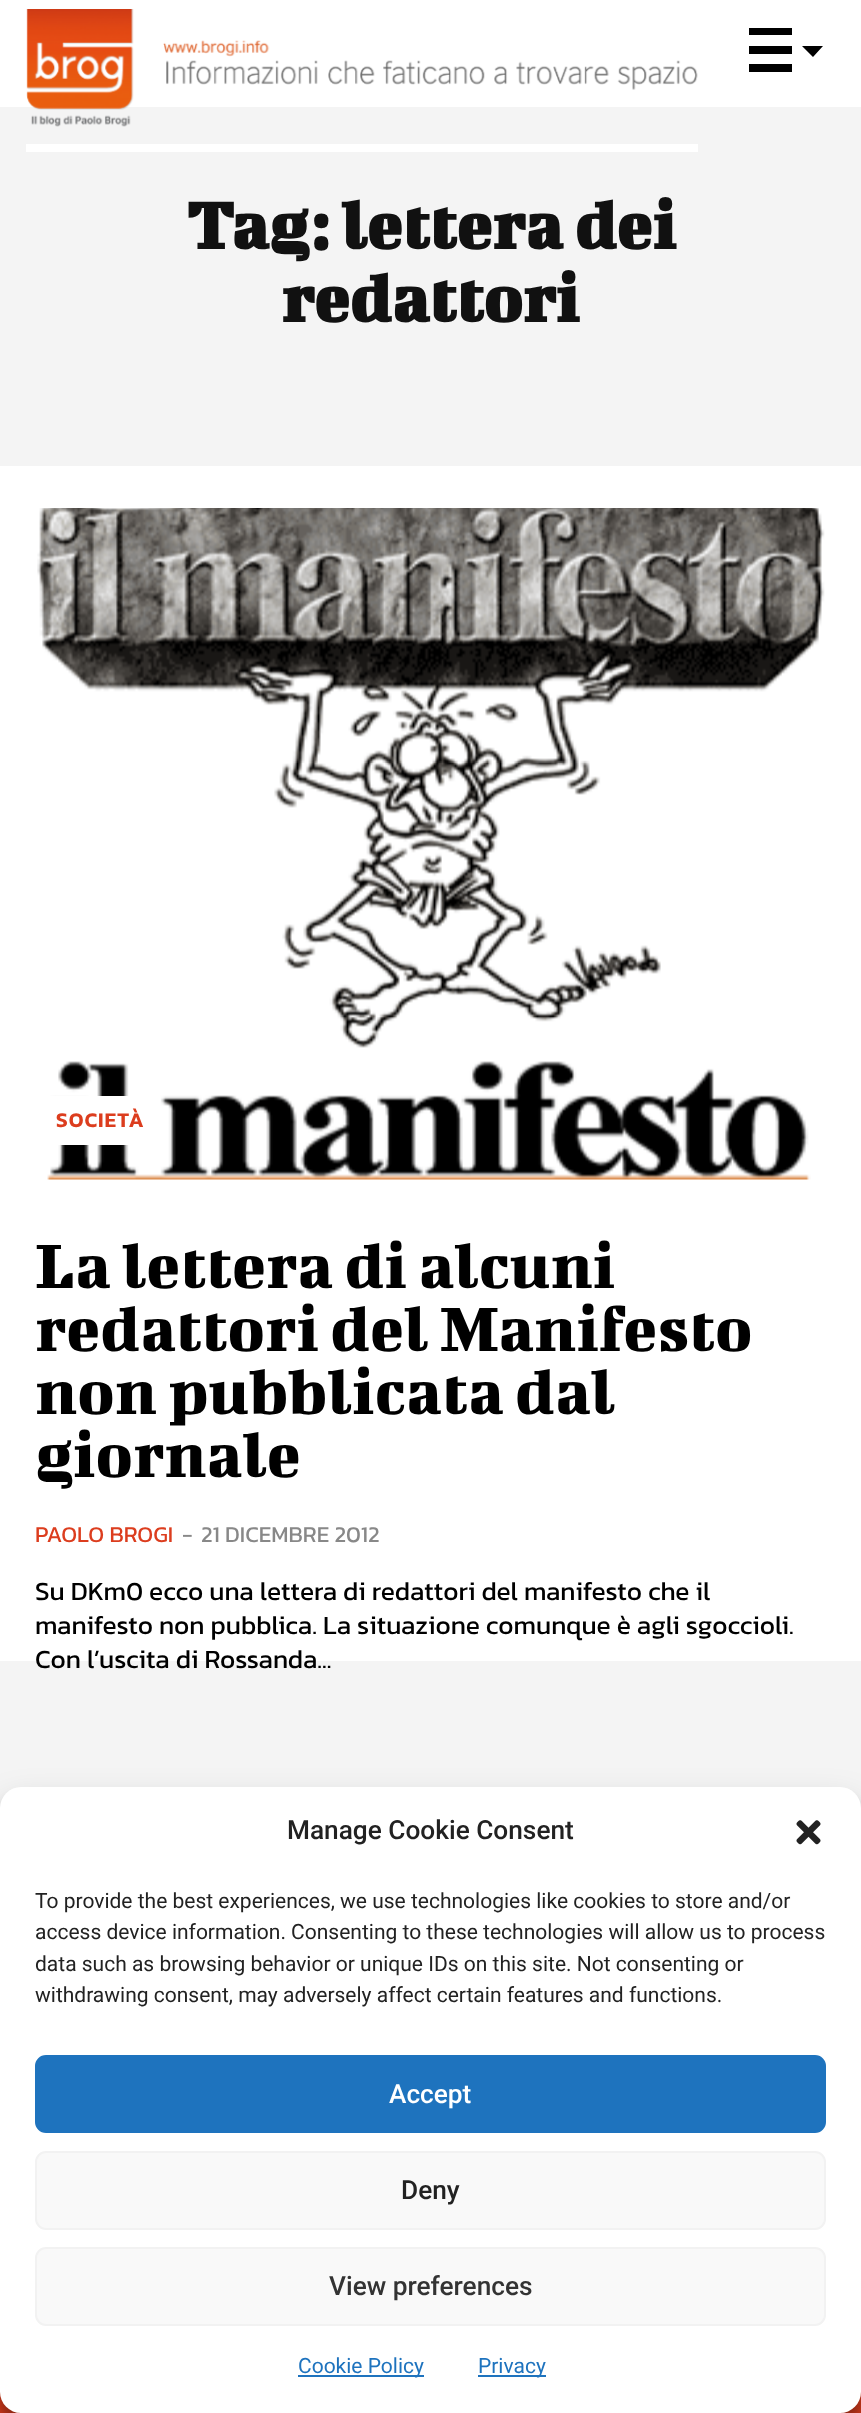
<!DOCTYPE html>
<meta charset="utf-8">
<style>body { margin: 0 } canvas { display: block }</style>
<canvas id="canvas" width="861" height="2413"></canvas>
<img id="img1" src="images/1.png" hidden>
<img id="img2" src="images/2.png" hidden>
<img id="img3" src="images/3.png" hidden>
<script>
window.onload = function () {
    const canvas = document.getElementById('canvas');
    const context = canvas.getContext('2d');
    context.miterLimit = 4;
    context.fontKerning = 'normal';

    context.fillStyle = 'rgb(255, 255, 255)';
    context.fillRect(0, 0, 861, 2413);
    context.fillStyle = 'rgb(244, 244, 244)';
    context.fillRect(0, 107, 861, 359);
    context.fillStyle = 'rgb(255, 255, 255)';
    context.fillRect(26, 144, 672, 8);
    context.drawImage(document.getElementById('img1'), 26, 9, 672, 118);
    context.fillStyle = 'rgb(0, 0, 0)';
    context.beginPath();
    context.moveTo(749, 28);
    context.lineTo(792, 28);
    context.lineTo(792, 35);
    context.lineTo(749, 35);
    context.closePath();
    context.moveTo(749, 46);
    context.lineTo(792, 46);
    context.lineTo(792, 54);
    context.lineTo(749, 54);
    context.closePath();
    context.moveTo(749, 64);
    context.lineTo(792, 64);
    context.lineTo(792, 72);
    context.lineTo(749, 72);
    context.closePath();
    context.moveTo(823, 46);
    context.lineTo(813, 57);
    context.lineTo(802, 46);
    context.closePath();
    context.fill();
    context.drawImage(document.getElementById('img2'), 37, 508, 788, 672);
    context.fillStyle = 'rgb(255, 255, 255)';
    context.beginPath();
    context.roundRect(35, 1096, 130, 49, [0, 24.5, 24.5, 0]);
    context.fill();
    context.fillStyle = 'rgb(244, 244, 244)';
    context.fillRect(0, 1661, 861, 147);
    context.fillStyle = 'rgb(220, 61, 30)';
    context.fillRect(0, 2392, 861, 21);
    context.fillStyle = 'rgba(0, 0, 0, 0.23)';
    context.filter = 'blur(5px)';
    context.beginPath();
    context.roundRect(0, 1797, 861, 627, 21);
    context.fill();
    context.filter = 'none';
    context.fillStyle = 'rgba(0, 0, 0, 0.19)';
    context.filter = 'blur(17.5px)';
    context.beginPath();
    context.roundRect(0, 1804, 861, 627, 21);
    context.fill();
    context.filter = 'none';
    context.fillStyle = 'rgb(255, 255, 255)';
    context.beginPath();
    context.roundRect(0, 1787, 861, 626, 21);
    context.fill();
    context.drawImage(document.getElementById('img3'), 796, 1820, 25, 25);
    context.fillStyle = 'rgb(30, 115, 190)';
    context.beginPath();
    context.roundRect(36, 2056, 789, 76, 10);
    context.fill();
    context.strokeStyle = 'rgb(30, 115, 190)';
    context.lineWidth = 2;
    context.stroke();
    context.fillStyle = 'rgb(249, 249, 249)';
    context.beginPath();
    context.roundRect(36, 2152, 789, 77, 10);
    context.fill();
    context.strokeStyle = 'rgb(242, 242, 242)';
    context.stroke();
    context.beginPath();
    context.roundRect(36, 2248, 789, 77, 10);
    context.fill();
    context.stroke();
    context.fillStyle = 'rgb(30, 115, 190)';
    context.fillRect(298, 2375, 126, 2);
    context.fillRect(478, 2375, 68, 2);
    context.font = 'bold 73.5px Bigshot One';
    context.fillStyle = 'rgb(17, 17, 17)';
    context.fillText('Tag: lettera dei', 186, 249);
    context.fillText('redattori', 281, 322);
    context.letterSpacing = '1px';
    context.font = '600 21px Kanit';
    context.fillStyle = 'rgb(220, 61, 30)';
    context.fillText('SOCIETÀ', 56, 1127);
    context.letterSpacing = '0px';
    context.font = '70px Bigshot One';
    context.fillStyle = 'rgb(0, 0, 0)';
    context.fillText('La lettera di alcuni', 35, 1288);
    context.fillText('redattori del Manifesto', 35, 1351);
    context.fillText('non pubblicata dal', 35, 1414);
    context.fillText('giornale', 35, 1477);
    context.font = '22.75px Kanit';
    context.fillStyle = 'rgb(220, 61, 30)';
    context.fillText('PAOLO BROGI', 35, 1542);
    context.fillStyle = 'rgb(136, 136, 136)';
    context.fillText('-', 182, 1542);
    context.fillText('21 DICEMBRE 2012', 201, 1542);
    context.font = '26.25px Kanit';
    context.fillStyle = 'rgb(0, 0, 0)';
    context.fillText('Su DKm0 ecco una lettera di redattori del manifesto che il', 35, 1600);
    context.fillText('manifesto non pubblica. La situazione comunque è agli sgoccioli.', 35, 1634);
    context.fillText('Con l’uscita di Rossanda...', 35, 1668);
    context.font = '500 26.25px Roboto';
    context.fillStyle = 'rgb(34, 34, 34)';
    context.fillText('Manage Cookie Consent', 287, 1839);
    context.font = '21px Roboto';
    context.fillText('To provide the best experiences, we use technologies like cookies to store and/or', 35, 1908);
    context.fillText('access device information. Consenting to these technologies will allow us to process', 35, 1939);
    context.fillText('data such as browsing behavior or unique IDs on this site. Not consenting or', 35, 1971);
    context.fillText('withdrawing consent, may adversely affect certain features and functions.', 35, 2002);
    context.font = '500 26.25px Roboto';
    context.fillStyle = 'rgb(255, 255, 255)';
    context.fillText('Accept', 389, 2103);
    context.fillStyle = 'rgb(34, 34, 34)';
    context.fillText('Deny', 401, 2199);
    context.fillStyle = 'rgb(51, 51, 51)';
    context.fillText('View preferences', 329, 2295);
    context.font = '21px Roboto';
    context.fillStyle = 'rgb(30, 115, 190)';
    context.fillText('Cookie Policy', 298, 2373);
    context.fillText('Privacy', 478, 2373);
};
</script>
